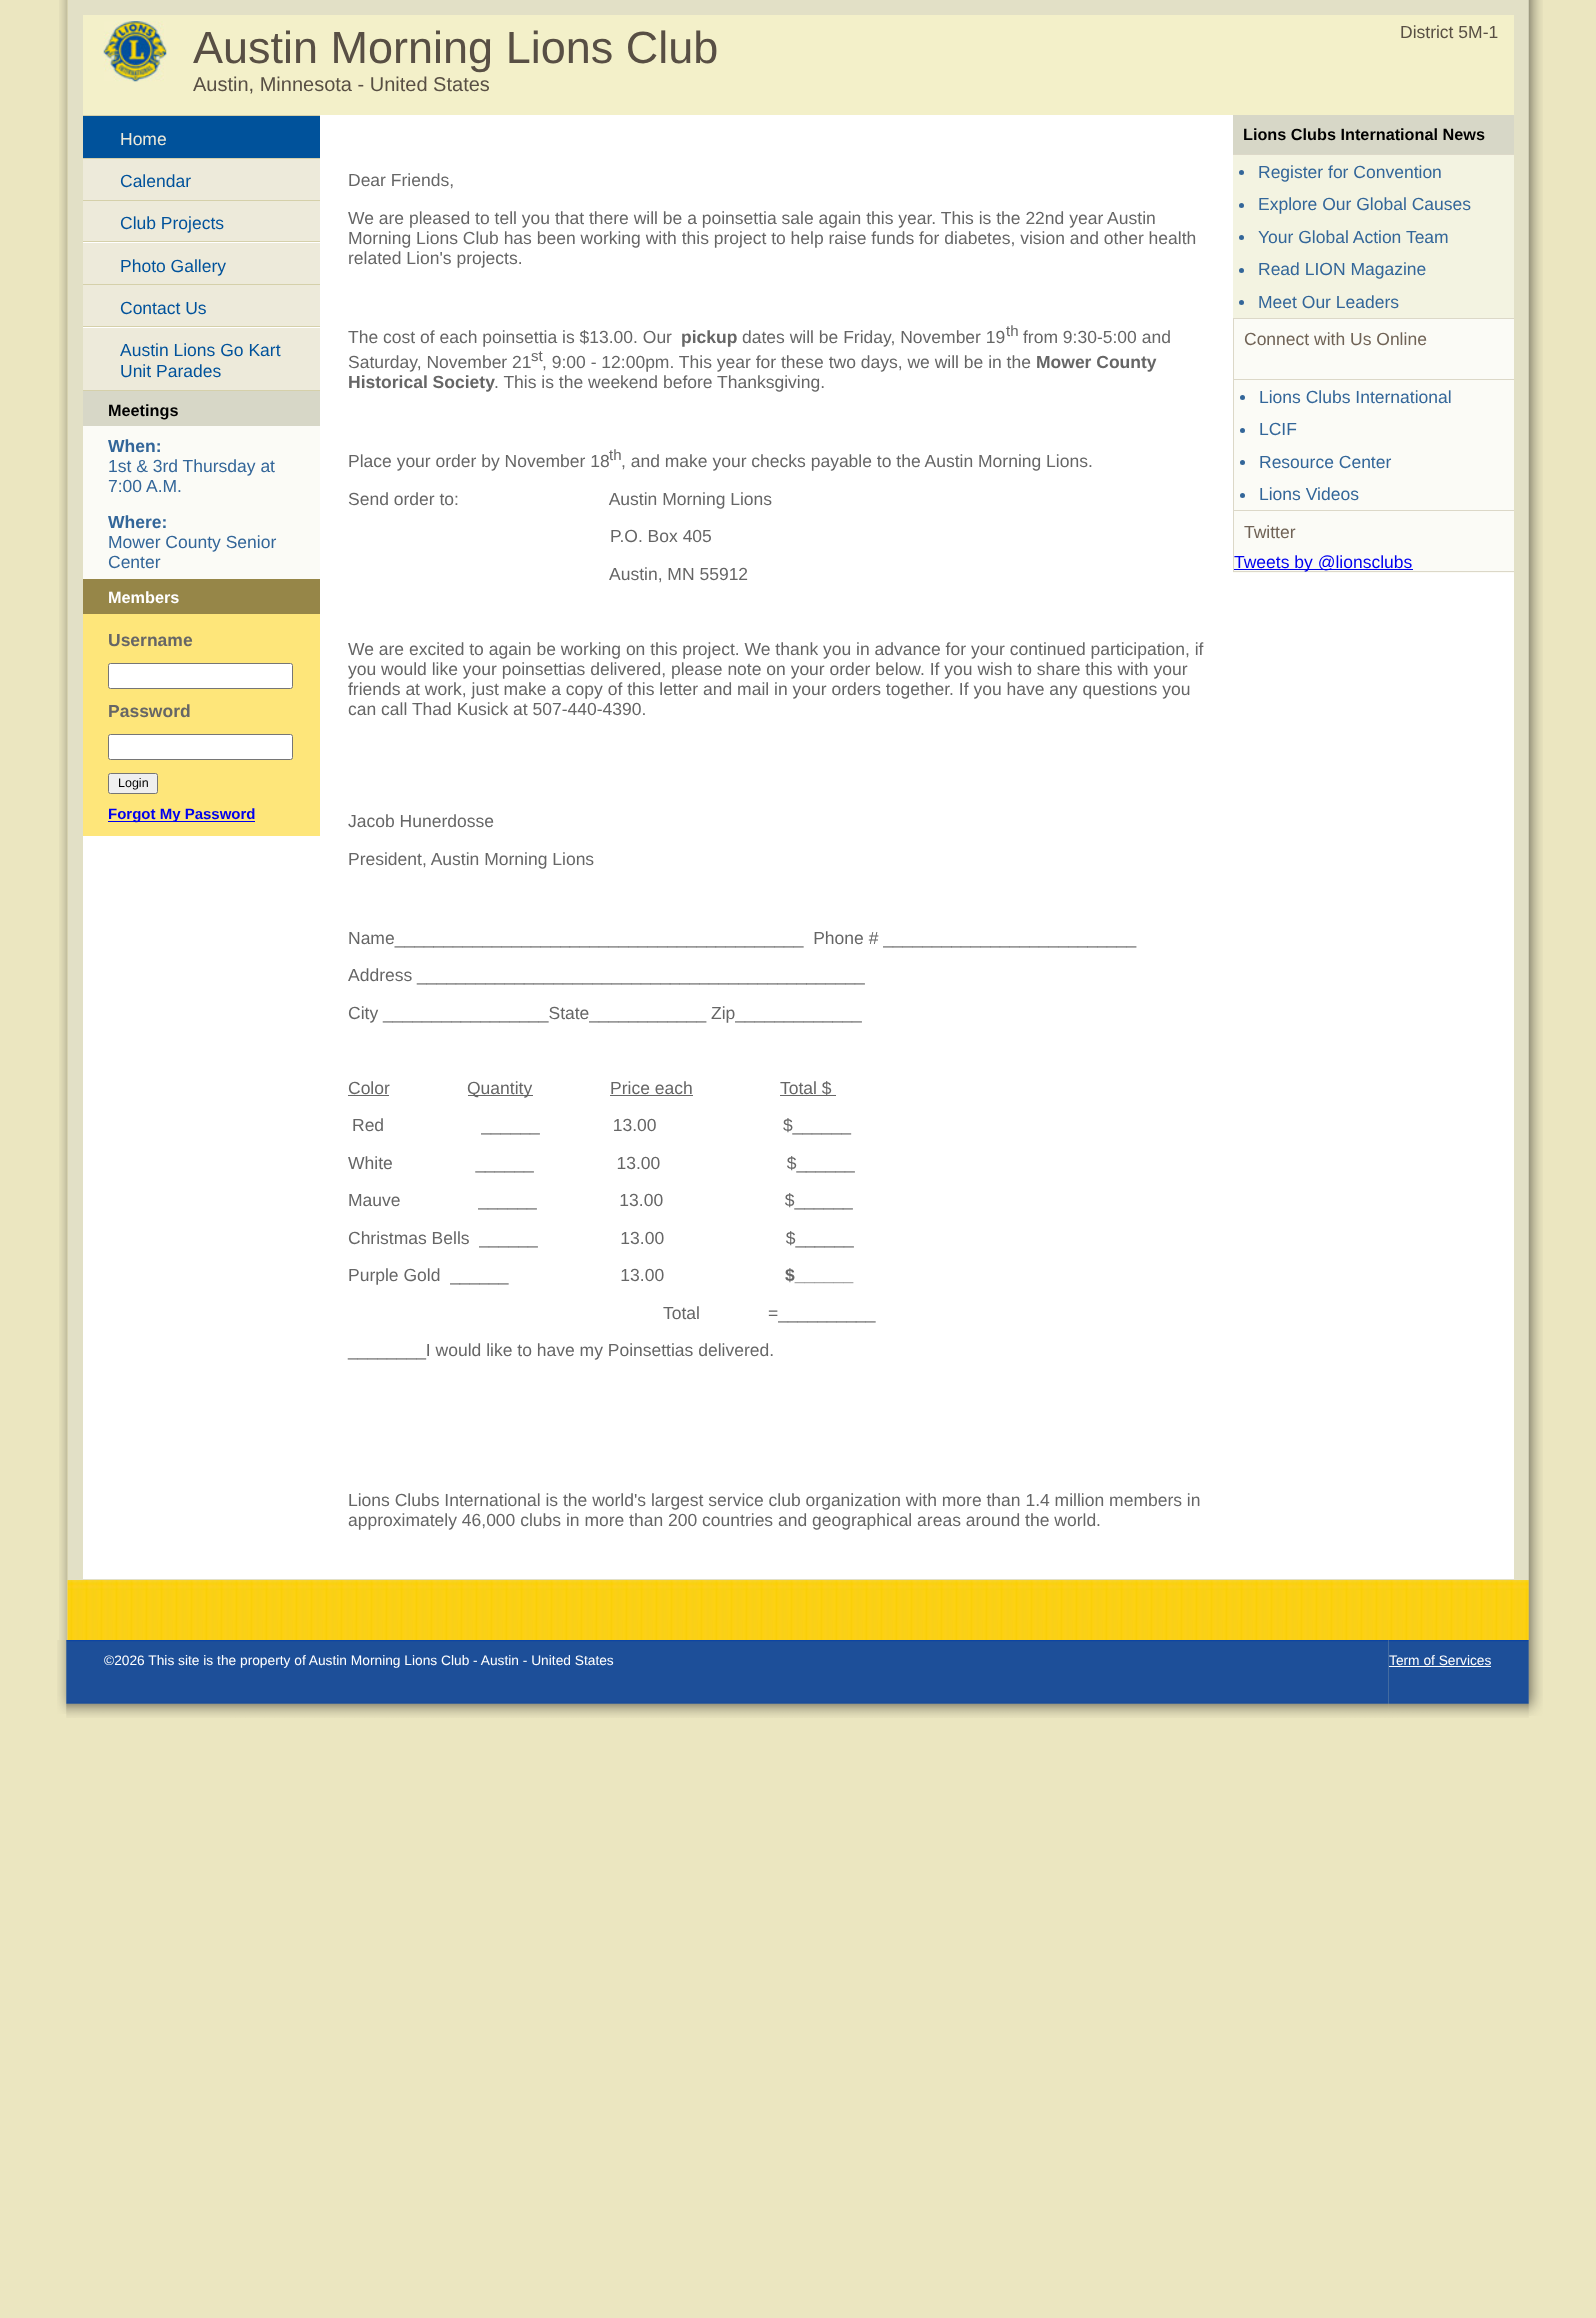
<!DOCTYPE html>
<meta charset="utf-8">
<style>body { margin: 0 } canvas { display: block }</style>
<canvas id="canvas" width="1596" height="2318"></canvas>
<img id="img1" src="images/1.png" hidden>
<img id="img2" src="images/2.png" hidden>
<img id="img3" src="images/3.png" hidden>
<img id="img4" src="images/4.png" hidden>
<img id="img5" src="images/6.png" hidden>
<img id="img6" src="images/5.png" hidden>
<img id="img7" src="images/7.png" hidden>
<img id="img8" src="images/8.png" hidden>
<script>
window.onload = function () {
    const canvas = document.getElementById('canvas');
    const context = canvas.getContext('2d');
    context.miterLimit = 4;
    context.fontKerning = 'normal';

    context.fillStyle = 'rgb(235, 230, 192)';
    context.fillRect(0, 0, 1596, 2318);
    context.drawImage(document.getElementById('img1'), 59, 0, 9, 1640);
    context.fillStyle = 'rgb(226, 224, 198)';
    context.fillRect(68, 0, 1461, 1640);
    context.drawImage(document.getElementById('img2'), 67, 1580, 1462, 60);
    context.fillStyle = 'rgb(243, 240, 201)';
    context.fillRect(83, 15, 1431, 100);
    context.drawImage(document.getElementById('img3'), 103, 21, 64, 61);
    context.fillStyle = 'rgb(255, 255, 255)';
    context.fillRect(83, 115, 1431, 1464);
    context.fillStyle = 'rgb(213, 208, 170)';
    context.fillRect(83, 115, 237, 1);
    context.fillRect(83, 158, 237, 1);
    context.fillStyle = 'rgb(0, 82, 155)';
    context.fillRect(83, 116, 237, 42);
    context.fillStyle = 'rgb(213, 208, 170)';
    context.fillRect(83, 200, 237, 1);
    context.fillStyle = 'rgb(237, 234, 218)';
    context.fillRect(83, 159, 237, 41);
    context.fillStyle = 'rgb(213, 208, 170)';
    context.fillRect(83, 241, 237, 1);
    context.fillStyle = 'rgb(237, 234, 218)';
    context.fillRect(83, 201, 237, 40);
    context.fillStyle = 'rgb(213, 208, 170)';
    context.fillRect(83, 284, 237, 1);
    context.fillStyle = 'rgb(237, 234, 218)';
    context.fillRect(83, 243, 237, 41);
    context.fillStyle = 'rgb(213, 208, 170)';
    context.fillRect(83, 326, 237, 1);
    context.fillStyle = 'rgb(237, 234, 218)';
    context.fillRect(83, 285, 237, 41);
    context.fillStyle = 'rgb(213, 208, 170)';
    context.fillRect(83, 390, 237, 1);
    context.fillStyle = 'rgb(237, 234, 218)';
    context.fillRect(83, 328, 237, 62);
    context.fillStyle = 'rgb(251, 251, 246)';
    context.fillRect(83, 426, 237, 153);
    context.fillStyle = 'rgb(215, 215, 199)';
    context.fillRect(83, 391, 237, 35);
    context.fillStyle = 'rgb(254, 230, 122)';
    context.fillRect(83, 614, 237, 222);
    context.fillStyle = 'rgb(150, 134, 72)';
    context.fillRect(83, 579, 237, 35);
    context.fillStyle = 'rgb(255, 255, 255)';
    context.beginPath();
    context.roundRect(108.5, 663.5, 184, 25, 2);
    context.fill();
    context.strokeStyle = 'rgb(118, 118, 118)';
    context.stroke();
    context.beginPath();
    context.roundRect(108.5, 734.5, 184, 25, 2);
    context.fill();
    context.stroke();
    context.fillStyle = 'rgb(239, 239, 239)';
    context.beginPath();
    context.roundRect(108.5, 773.5, 49, 20, 2);
    context.fill();
    context.stroke();
    context.fillStyle = 'rgb(0, 0, 238)';
    context.fillRect(108, 821, 147, 1);
    context.fillStyle = 'rgb(102, 102, 102)';
    context.fillRect(348, 1095, 41, 1);
    context.fillRect(468, 1095, 65, 1);
    context.fillRect(610, 1095, 83, 1);
    context.fillRect(780, 1095, 56, 1);
    context.fillStyle = 'rgb(243, 243, 225)';
    context.fillRect(1233, 155, 281, 163);
    context.fillStyle = 'rgb(215, 215, 199)';
    context.fillRect(1233, 115, 281, 39);
    context.fillStyle = 'rgb(220, 216, 200)';
    context.fillRect(1233, 154, 281, 1);
    context.fillStyle = 'rgb(51, 102, 153)';
    context.beginPath();
    context.arc(1241.5, 172.5, 2.5, 0, 2 * Math.PI);
    context.fill();
    context.beginPath();
    context.arc(1241.5, 205.5, 2.5, 0, 2 * Math.PI);
    context.fill();
    context.beginPath();
    context.arc(1241.5, 237.5, 2.5, 0, 2 * Math.PI);
    context.fill();
    context.beginPath();
    context.arc(1241.5, 270.5, 2.5, 0, 2 * Math.PI);
    context.fill();
    context.beginPath();
    context.arc(1241.5, 302.5, 2.5, 0, 2 * Math.PI);
    context.fill();
    context.fillStyle = 'rgb(220, 216, 200)';
    context.fillRect(1233, 318, 281, 1);
    context.fillStyle = 'rgb(251, 251, 246)';
    context.fillRect(1234, 319, 280, 60);
    context.fillStyle = 'rgb(220, 216, 200)';
    context.fillRect(1233, 319, 1, 60);
    context.fillRect(1233, 379, 281, 1);
    context.fillStyle = 'rgb(251, 251, 246)';
    context.fillRect(1234, 380, 280, 130);
    context.fillStyle = 'rgb(220, 216, 200)';
    context.fillRect(1233, 380, 1, 130);
    context.fillStyle = 'rgb(51, 102, 153)';
    context.beginPath();
    context.arc(1242.5, 397.5, 2.5, 0, 2 * Math.PI);
    context.fill();
    context.beginPath();
    context.arc(1242.5, 430.5, 2.5, 0, 2 * Math.PI);
    context.fill();
    context.beginPath();
    context.arc(1242.5, 462.5, 2.5, 0, 2 * Math.PI);
    context.fill();
    context.beginPath();
    context.arc(1242.5, 495.5, 2.5, 0, 2 * Math.PI);
    context.fill();
    context.fillStyle = 'rgb(220, 216, 200)';
    context.fillRect(1233, 510, 281, 1);
    context.fillStyle = 'rgb(251, 251, 246)';
    context.fillRect(1233, 511, 281, 62);
    context.fillStyle = 'rgb(220, 216, 200)';
    context.fillRect(1233, 511, 1, 60);
    context.fillStyle = 'rgb(0, 0, 238)';
    context.fillRect(1234, 569, 179, 1);
    context.fillStyle = 'rgb(220, 216, 200)';
    context.fillRect(1233, 571, 281, 1);
    context.drawImage(document.getElementById('img4'), 1528, 0, 15, 1640);
    context.drawImage(document.getElementById('img5'), 66, 1640, 1323, 78);
    context.drawImage(document.getElementById('img6'), 57, 1640, 10, 74);
    context.drawImage(document.getElementById('img7'), 1388, 1640, 141, 78);
    context.fillStyle = 'rgb(255, 255, 255)';
    context.fillRect(1389, 1666, 102, 1);
    context.drawImage(document.getElementById('img8'), 1528, 1640, 15, 76);
    context.font = '45px Liberation Sans';
    context.fillStyle = 'rgb(88, 79, 68)';
    context.fillText('Austin Morning Lions Club', 193, 63);
    context.font = '20px Liberation Sans';
    context.fillText('Austin, Minnesota - United States', 193, 91);
    context.font = '17.5px Liberation Sans';
    context.fillText('District 5M-1', 1400, 38);
    context.fillStyle = 'rgb(237, 234, 218)';
    context.fillText('Home', 120, 145);
    context.fillStyle = 'rgb(0, 82, 155)';
    context.fillText('Calendar', 120, 187);
    context.fillText('Club Projects', 120, 229);
    context.fillText('Photo Gallery', 120, 272);
    context.fillText('Contact Us', 120, 314);
    context.fillText('Austin Lions Go Kart', 120, 356);
    context.fillText('Unit Parades', 120, 377);
    context.font = 'bold 16.25px Liberation Sans';
    context.fillStyle = 'rgb(0, 0, 0)';
    context.fillText('Meetings', 108, 416);
    context.font = 'bold 17.5px Liberation Sans';
    context.fillStyle = 'rgb(51, 102, 153)';
    context.fillText('When:', 108, 452);
    context.font = '17.5px Liberation Sans';
    context.fillText('1st & 3rd Thursday at', 108, 472);
    context.fillText('7:00 A.M.', 108, 492);
    context.font = 'bold 17.5px Liberation Sans';
    context.fillText('Where:', 108, 528);
    context.font = '17.5px Liberation Sans';
    context.fillText('Mower County Senior', 108, 548);
    context.fillText('Center', 108, 568);
    context.font = 'bold 16.25px Liberation Sans';
    context.fillStyle = 'rgb(255, 255, 255)';
    context.fillText('Members', 108, 603);
    context.font = 'bold 17.5px Liberation Sans';
    context.fillStyle = 'rgb(102, 102, 102)';
    context.fillText('Username', 108, 646);
    context.fillText('Password', 108, 717);
    context.font = '12.5px Liberation Sans';
    context.fillStyle = 'rgb(0, 0, 0)';
    context.fillText('Login', 118, 787);
    context.font = 'bold 15px Liberation Sans';
    context.fillStyle = 'rgb(0, 0, 238)';
    context.fillText('Forgot My Password', 108, 819);
    context.font = '17.5px Liberation Sans';
    context.fillStyle = 'rgb(102, 102, 102)';
    context.fillText('Dear Friends,', 348, 186);
    context.fillText('We are pleased to tell you that there will be a poinsettia sale again this year. This is the 22nd year Austin', 348, 224);
    context.fillText('Morning Lions Club has been working with this project to help raise funds for diabetes, vision and other health', 348, 244);
    context.fillText('related Lion\'s projects.', 348, 264);
    context.fillText('The cost of each poinsettia is $13.00. Our', 348, 343);
    context.font = 'bold 17.5px Liberation Sans';
    context.fillText('pickup', 681, 343);
    context.font = '17.5px Liberation Sans';
    context.fillText('dates will be Friday, November 19', 742, 343);
    context.font = '15px Liberation Sans';
    context.fillText('th', 1006, 336);
    context.font = '17.5px Liberation Sans';
    context.fillText('from 9:30-5:00 and', 1023, 343);
    context.fillText('Saturday, November 21', 348, 368);
    context.font = '15px Liberation Sans';
    context.fillText('st', 531, 361);
    context.font = '17.5px Liberation Sans';
    context.fillText(', 9:00 - 12:00pm. This year for these two days, we will be in the', 542, 368);
    context.font = 'bold 17.5px Liberation Sans';
    context.fillText('Mower County', 1036, 368);
    context.fillText('Historical Society', 348, 388);
    context.font = '17.5px Liberation Sans';
    context.fillText('. This is the weekend before Thanksgiving.', 494, 388);
    context.fillText('Place your order by November 18', 348, 467);
    context.font = '15px Liberation Sans';
    context.fillText('th', 609, 460);
    context.font = '17.5px Liberation Sans';
    context.fillText(', and make your checks payable to the Austin Morning Lions.', 621, 467);
    context.fillText('Send order to:                               Austin Morning Lions', 348, 505);
    context.fillText('P.O. Box 405', 610, 542);
    context.fillText('Austin, MN 55912', 609, 580);
    context.fillText('We are excited to again be working on this project. We thank you in advance for your continued participation, if', 348, 655);
    context.fillText('you would like your poinsettias delivered, please note on your order below. If you wish to share this with your', 348, 675);
    context.fillText('friends at work, just make a copy of this letter and mail in your orders together. If you have any questions you', 348, 695);
    context.fillText('can call Thad Kusick at 507-440-4390.', 348, 715);
    context.fillText('Jacob Hunerdosse', 348, 827);
    context.fillText('President, Austin Morning Lions', 348, 865);
    context.fillText('Name__________________________________________  Phone # __________________________', 348, 944);
    context.fillText('Address ______________________________________________', 348, 981);
    context.fillText('City _________________State____________ Zip_____________', 348, 1019);
    context.fillText('Color', 348, 1094);
    context.fillText('Quantity', 467, 1094);
    context.fillText('Price each', 610, 1094);
    context.fillText('Total $', 780, 1094);
    context.fillText('Red                    ______               13.00                          $______', 352, 1131);
    context.fillText('White                 ______                 13.00                          $______', 348, 1169);
    context.fillText('Mauve                ______                 13.00                         $______', 348, 1206);
    context.fillText('Christmas Bells  ______                 13.00                         $______', 348, 1244);
    context.fillText('Purple Gold  ______                       13.00', 348, 1281);
    context.font = 'bold 17.5px Liberation Sans';
    context.fillText('$______', 785, 1281);
    context.font = '17.5px Liberation Sans';
    context.fillText('Total              =__________', 663, 1319);
    context.fillText('________I would like to have my Poinsettias delivered.', 348, 1356);
    context.fillText('Lions Clubs International is the world\'s largest service club organization with more than 1.4 million members in', 348, 1506);
    context.fillText('approximately 46,000 clubs in more than 200 countries and geographical areas around the world.', 348, 1526);
    context.font = 'bold 16.25px Liberation Sans';
    context.fillStyle = 'rgb(0, 0, 0)';
    context.fillText('Lions Clubs International News', 1243, 140);
    context.font = '17.5px Liberation Sans';
    context.fillStyle = 'rgb(51, 102, 153)';
    context.fillText('Register for Convention', 1258, 178);
    context.fillText('Explore Our Global Causes', 1258, 210);
    context.fillText('Your Global Action Team', 1258, 243);
    context.fillText('Read LION Magazine', 1258, 275);
    context.fillText('Meet Our Leaders', 1258, 308);
    context.fillStyle = 'rgb(112, 99, 86)';
    context.fillText('Connect with Us Online', 1244, 345);
    context.fillStyle = 'rgb(51, 102, 153)';
    context.fillText('Lions Clubs International', 1259, 403);
    context.fillText('LCIF', 1259, 435);
    context.fillText('Resource Center', 1259, 468);
    context.fillText('Lions Videos', 1259, 500);
    context.fillStyle = 'rgb(112, 99, 86)';
    context.fillText('Twitter', 1244, 538);
    context.fillStyle = 'rgb(0, 0, 238)';
    context.fillText('Tweets by @lionsclubs', 1234, 568);
    context.font = '13.75px Liberation Sans';
    context.fillStyle = 'rgb(255, 255, 255)';
    context.fillText('©2026 This site is the property of Austin Morning Lions Club - Austin - United States', 104, 1665);
    context.fillText('Term of Services', 1389, 1665);
};
</script>
